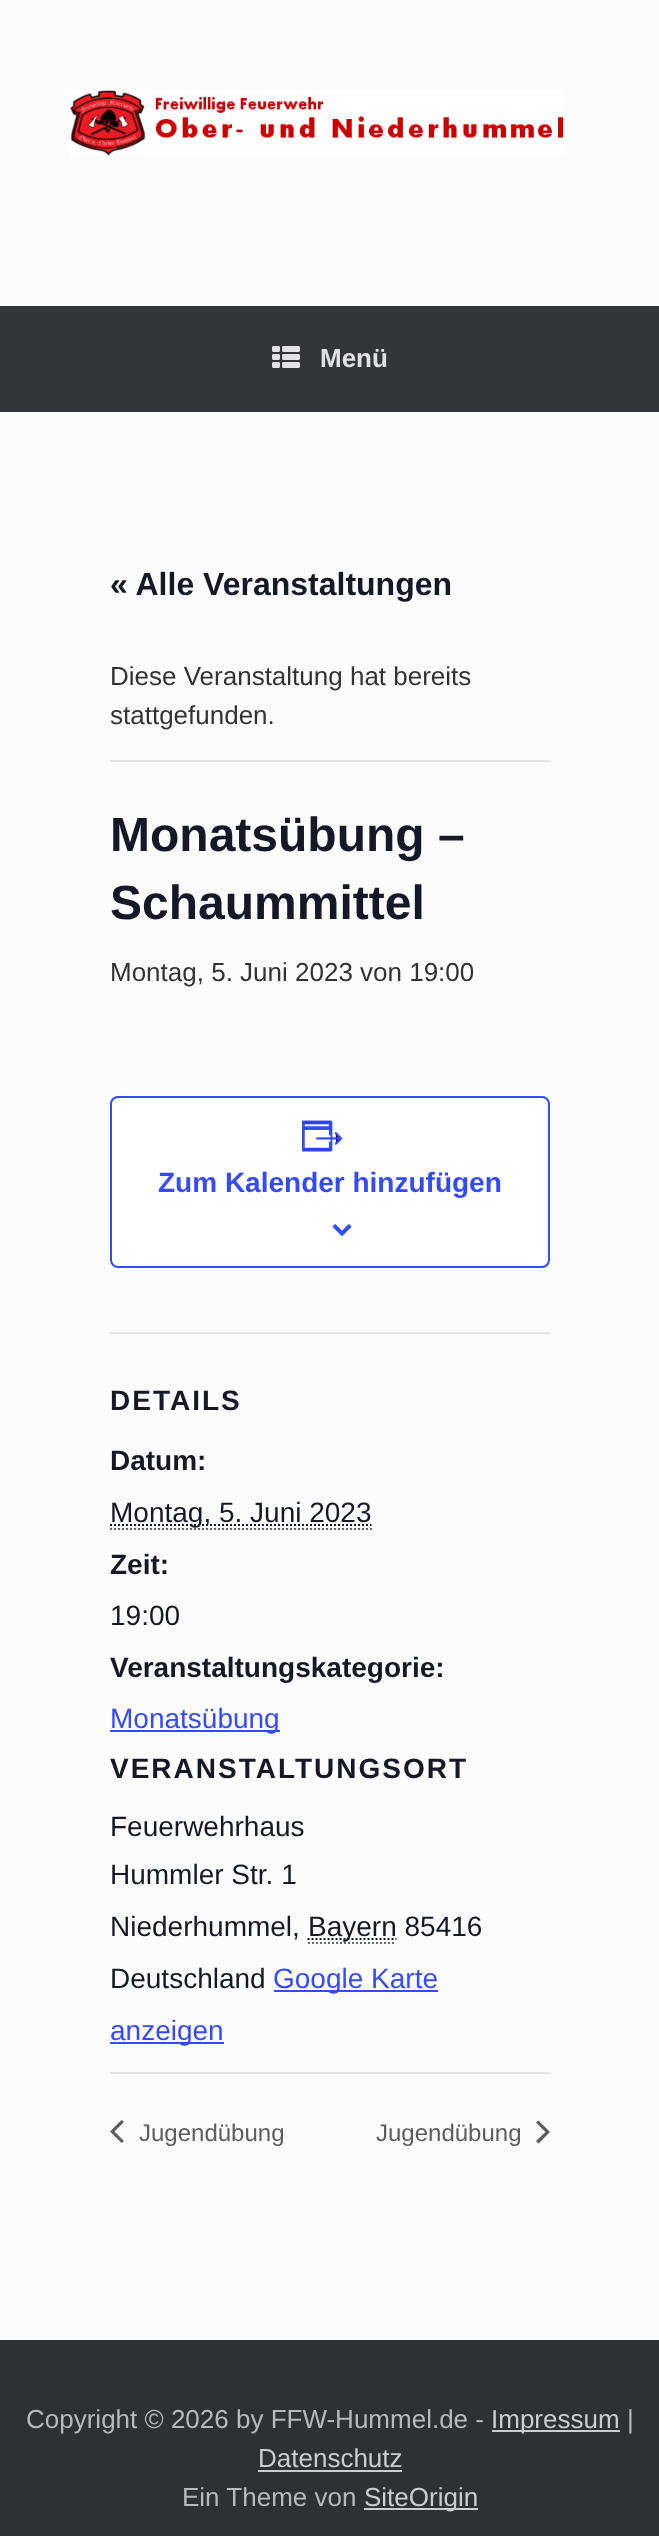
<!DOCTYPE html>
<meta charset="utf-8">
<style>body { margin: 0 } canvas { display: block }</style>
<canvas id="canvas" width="659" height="2536"></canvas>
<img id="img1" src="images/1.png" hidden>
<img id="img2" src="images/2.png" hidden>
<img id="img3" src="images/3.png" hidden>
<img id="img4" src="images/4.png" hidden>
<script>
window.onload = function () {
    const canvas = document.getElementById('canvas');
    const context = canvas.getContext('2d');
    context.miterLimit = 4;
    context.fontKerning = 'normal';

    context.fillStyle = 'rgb(47, 48, 51)';
    context.fillRect(0, 0, 659, 2536);
    context.fillStyle = 'rgb(252, 252, 252)';
    context.fillRect(0, 0, 659, 306);
    context.drawImage(document.getElementById('img1'), 70, 90, 494, 66);
    context.fillStyle = 'rgb(52, 53, 56)';
    context.fillRect(0, 306, 659, 106);
    context.drawImage(document.getElementById('img2'), 272, 346, 28, 22);
    context.fillStyle = 'rgb(252, 252, 252)';
    context.fillRect(0, 412, 659, 1928);
    context.fillStyle = 'rgb(228, 228, 228)';
    context.fillRect(110, 760, 440, 2);
    context.fillStyle = 'rgb(255, 255, 255)';
    context.beginPath();
    context.roundRect(111, 1097, 438, 170, 7);
    context.fill();
    context.strokeStyle = 'rgb(51, 74, 255)';
    context.lineWidth = 2;
    context.stroke();
    context.drawImage(document.getElementById('img3'), 302, 1120, 41, 32);
    context.drawImage(document.getElementById('img4'), 332, 1224, 20, 12);
    context.fillStyle = 'rgb(228, 228, 228)';
    context.fillRect(110, 1332, 440, 2);
    context.beginPath();
    context.moveTo(110, 1529);
    context.lineTo(372, 1529);
    context.strokeStyle = 'rgb(102, 102, 102)';
    context.setLineDash([2, 2]);
    context.stroke();
    context.beginPath();
    context.moveTo(110, 1525);
    context.lineTo(371.5, 1525);
    context.strokeStyle = 'rgb(20, 24, 39)';
    context.stroke();
    context.fillStyle = 'rgb(51, 74, 255)';
    context.fillRect(110, 1730, 170, 2);
    context.beginPath();
    context.moveTo(308, 1943);
    context.lineTo(396, 1943);
    context.strokeStyle = 'rgb(102, 102, 102)';
    context.stroke();
    context.beginPath();
    context.moveTo(307.5, 1939);
    context.lineTo(396.5, 1939);
    context.strokeStyle = 'rgb(20, 24, 39)';
    context.stroke();
    context.fillRect(274, 1990, 164, 2);
    context.fillRect(110, 2042, 114, 2);
    context.fillStyle = 'rgb(228, 228, 228)';
    context.fillRect(110, 2072, 440, 2);
    context.fillStyle = 'rgb(93, 93, 93)';
    context.beginPath();
    context.moveTo(124, 2141);
    context.lineTo(121.5, 2143);
    context.lineTo(110, 2131.5);
    context.lineTo(121.5, 2120);
    context.lineTo(124, 2122);
    context.lineTo(114.5, 2131.5);
    context.closePath();
    context.fill();
    context.beginPath();
    context.moveTo(536, 2122.5);
    context.lineTo(538.5, 2120.5);
    context.lineTo(550, 2132);
    context.lineTo(538.5, 2143.5);
    context.lineTo(536, 2141);
    context.lineTo(545.5, 2132);
    context.closePath();
    context.fill();
    context.fillStyle = 'rgb(204, 204, 204)';
    context.fillRect(492, 2430, 128, 2);
    context.fillRect(258, 2470, 144, 2);
    context.fillRect(364, 2508, 114, 2);
    context.font = 'bold 26px Liberation Sans';
    context.fillStyle = 'rgb(226, 226, 226)';
    context.fillText('Menü', 320, 367);
    context.font = 'bold 32px Liberation Sans';
    context.fillStyle = 'rgb(20, 24, 39)';
    context.fillText('« Alle Veranstaltungen', 110, 595);
    context.font = '26px Liberation Sans';
    context.fillStyle = 'rgb(51, 51, 51)';
    context.fillText('Diese Veranstaltung hat bereits', 110, 685);
    context.fillText('stattgefunden.', 110, 724);
    context.font = 'bold 48px Liberation Sans';
    context.fillStyle = 'rgb(20, 24, 39)';
    context.fillText('Monatsübung –', 110, 851);
    context.fillText('Schaummittel', 110, 919);
    context.font = '26px Liberation Sans';
    context.fillStyle = 'rgb(51, 51, 51)';
    context.fillText('Montag, 5. Juni 2023 von 19:00', 110, 981);
    context.font = 'bold 28px Liberation Sans';
    context.fillStyle = 'rgb(51, 74, 255)';
    context.fillText('Zum Kalender hinzufügen', 158, 1192);
    context.letterSpacing = '2px';
    context.fillStyle = 'rgb(20, 24, 39)';
    context.fillText('DETAILS', 110, 1410);
    context.letterSpacing = '0px';
    context.fillText('Datum:', 110, 1470);
    context.font = '28px Liberation Sans';
    context.fillText('Montag, 5. Juni 2023', 110, 1522);
    context.font = 'bold 28px Liberation Sans';
    context.fillText('Zeit:', 110, 1574);
    context.font = '28px Liberation Sans';
    context.fillText('19:00', 110, 1625);
    context.font = 'bold 28px Liberation Sans';
    context.fillText('Veranstaltungskategorie:', 110, 1677);
    context.font = '28px Liberation Sans';
    context.fillStyle = 'rgb(51, 74, 255)';
    context.fillText('Monatsübung', 110, 1728);
    context.letterSpacing = '2px';
    context.font = 'bold 28px Liberation Sans';
    context.fillStyle = 'rgb(20, 24, 39)';
    context.fillText('VERANSTALTUNGSORT', 110, 1778);
    context.letterSpacing = '0px';
    context.font = '28px Liberation Sans';
    context.fillText('Feuerwehrhaus', 110, 1836);
    context.fillText('Hummler Str. 1', 110, 1884);
    context.fillText('Niederhummel,', 110, 1936);
    context.fillText('Bayern 85416', 308, 1936);
    context.fillText('Deutschland', 110, 1988);
    context.fillStyle = 'rgb(51, 74, 255)';
    context.fillText('Google Karte', 273, 1988);
    context.fillText('anzeigen', 110, 2040);
    context.font = '24px Liberation Sans';
    context.fillStyle = 'rgb(93, 93, 93)';
    context.fillText('Jugendübung', 139, 2141);
    context.fillText('Jugendübung', 376, 2141);
    context.font = '26px Liberation Sans';
    context.fillStyle = 'rgb(185, 185, 185)';
    context.fillText('Copyright © 2026 by FFW-Hummel.de -', 26, 2428);
    context.fillStyle = 'rgb(204, 204, 204)';
    context.fillText('Impressum', 491, 2428);
    context.fillStyle = 'rgb(185, 185, 185)';
    context.fillText('|', 627, 2428);
    context.fillStyle = 'rgb(204, 204, 204)';
    context.fillText('Datenschutz', 258, 2467);
    context.fillStyle = 'rgb(185, 185, 185)';
    context.fillText('Ein Theme von', 182, 2506);
    context.fillStyle = 'rgb(204, 204, 204)';
    context.fillText('SiteOrigin', 364, 2506);
};
</script>
